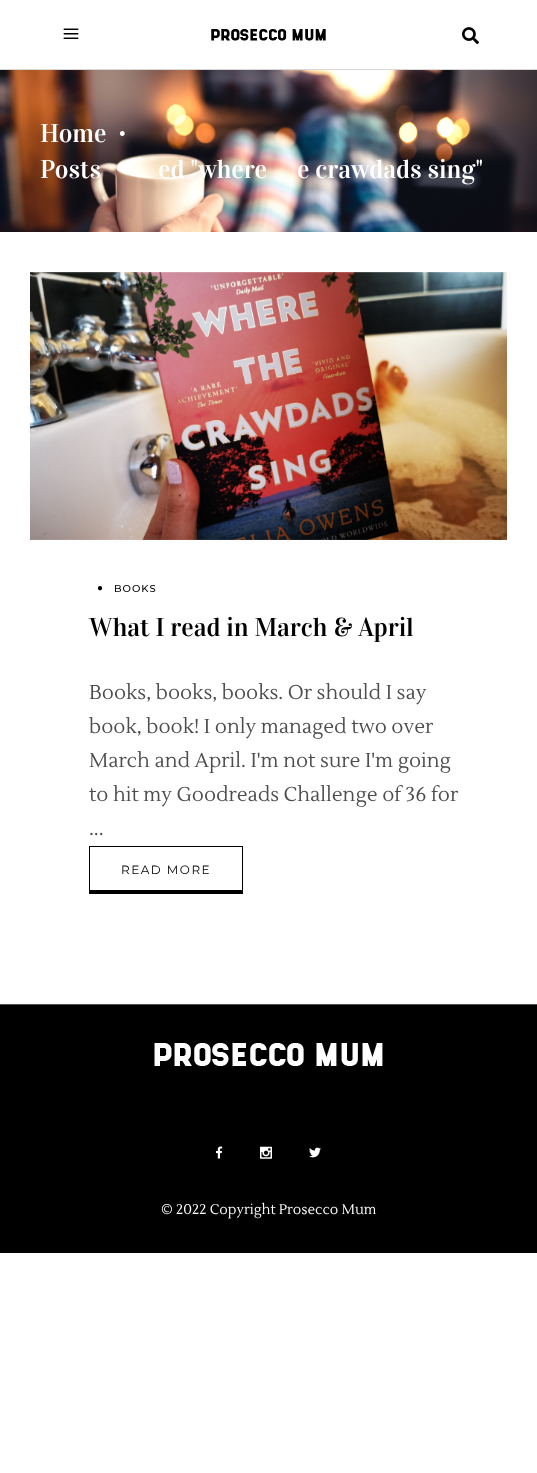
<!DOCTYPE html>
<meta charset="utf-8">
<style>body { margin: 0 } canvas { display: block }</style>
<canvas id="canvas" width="537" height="1473"></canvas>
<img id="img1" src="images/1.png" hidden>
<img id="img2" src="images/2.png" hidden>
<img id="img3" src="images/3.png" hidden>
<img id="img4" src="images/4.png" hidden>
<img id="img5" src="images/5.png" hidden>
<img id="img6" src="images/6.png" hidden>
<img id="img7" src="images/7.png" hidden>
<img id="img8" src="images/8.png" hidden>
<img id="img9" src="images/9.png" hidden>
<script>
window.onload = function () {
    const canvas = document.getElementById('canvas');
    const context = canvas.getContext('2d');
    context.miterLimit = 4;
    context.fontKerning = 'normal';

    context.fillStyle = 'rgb(255, 255, 255)';
    context.fillRect(0, 0, 537, 1473);
    context.fillStyle = 'rgb(215, 215, 215)';
    context.fillRect(0, 69, 537, 1);
    context.drawImage(document.getElementById('img1'), 63, 28, 16, 11);
    context.drawImage(document.getElementById('img2'), 211, 29, 115, 12);
    context.drawImage(document.getElementById('img3'), 462, 27, 17, 18);
    context.drawImage(document.getElementById('img4'), 0, 70, 537, 162);
    context.drawImage(document.getElementById('img5'), 30, 272, 477, 268);
    context.strokeStyle = 'rgb(0, 0, 0)';
    context.strokeRect(89.5, 846.5, 153, 47);
    context.fillStyle = 'rgb(0, 0, 0)';
    context.fillRect(90, 890, 152, 3);
    context.fillRect(0, 1005, 537, 248);
    context.fillStyle = 'rgb(77, 77, 77)';
    context.fillRect(0, 1004, 537, 1);
    context.drawImage(document.getElementById('img6'), 154, 1043, 229, 23);
    context.drawImage(document.getElementById('img7'), 216, 1146, 7, 13);
    context.drawImage(document.getElementById('img8'), 260, 1146, 12, 13);
    context.drawImage(document.getElementById('img9'), 309, 1147, 12, 11);
    context.font = '26px Vidaloka';
    context.fillStyle = 'rgb(255, 255, 255)';
    context.fillText('Home', 40, 142);
    context.font = '22px Vidaloka';
    context.fillText('•', 119, 141);
    context.font = '26px Vidaloka';
    context.fillText('Posts', 40, 178);
    context.fillText('ed "where', 158, 178);
    context.fillText('e crawdads sing"', 297, 178);
    context.letterSpacing = '1px';
    context.font = '10px Liberation Sans';
    context.fillStyle = 'rgb(0, 0, 0)';
    context.fillText('●', 97, 591);
    context.font = '500 10px Montserrat';
    context.fillText('BOOKS', 114, 592);
    context.letterSpacing = '0px';
    context.font = '26px Vidaloka';
    context.fillText('What I read in March & April', 89, 636);
    context.font = '20px Lustria';
    context.fillStyle = 'rgb(77, 77, 77)';
    context.fillText('Books, books, books. Or should I say', 89, 699);
    context.fillText('book, book! I only managed two over', 89, 733);
    context.fillText('March and April. I\'m not sure I\'m going', 89, 767);
    context.fillText('to hit my Goodreads Challenge of 36 for', 89, 801);
    context.fillText('...', 89, 835);
    context.letterSpacing = '1.5px';
    context.font = '12px Montserrat';
    context.fillStyle = 'rgb(0, 0, 0)';
    context.fillText('READ MORE', 121, 874);
    context.letterSpacing = '0px';
    context.font = '14px Lustria';
    context.fillStyle = 'rgb(255, 255, 255)';
    context.fillText('© 2022 Copyright Prosecco Mum', 161, 1214);
};
</script>
